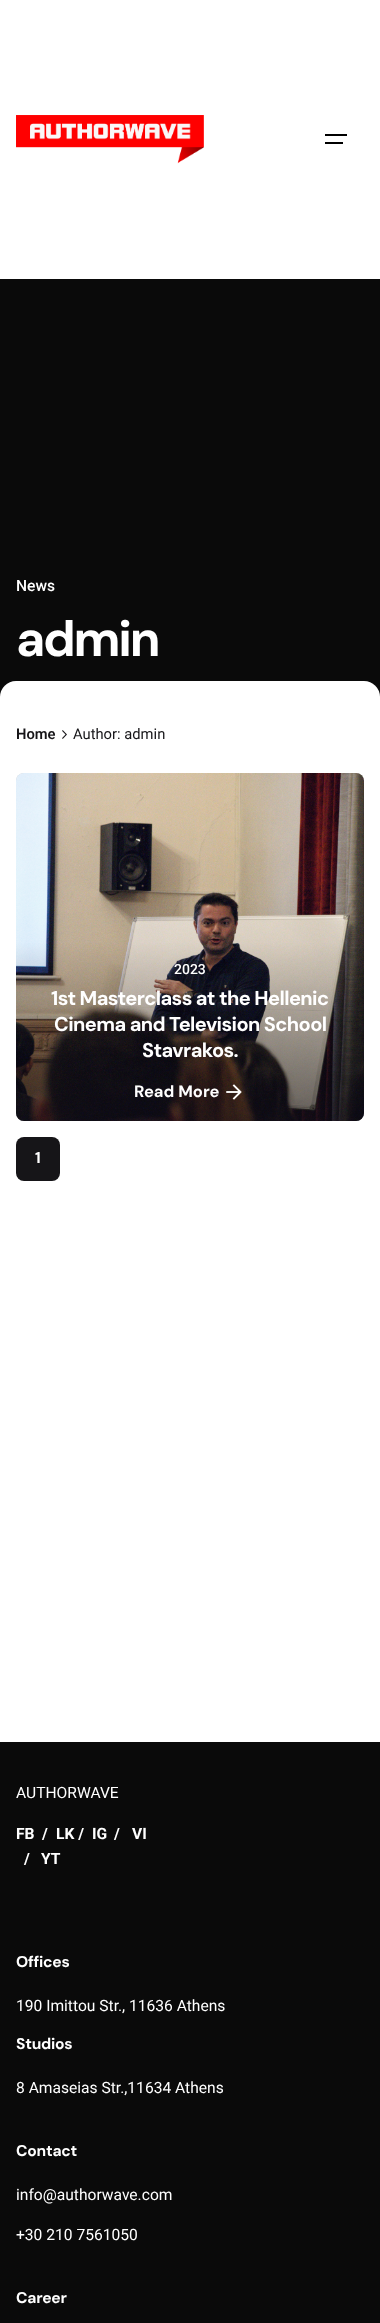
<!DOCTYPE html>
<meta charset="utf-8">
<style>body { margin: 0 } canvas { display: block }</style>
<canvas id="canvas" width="380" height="2323"></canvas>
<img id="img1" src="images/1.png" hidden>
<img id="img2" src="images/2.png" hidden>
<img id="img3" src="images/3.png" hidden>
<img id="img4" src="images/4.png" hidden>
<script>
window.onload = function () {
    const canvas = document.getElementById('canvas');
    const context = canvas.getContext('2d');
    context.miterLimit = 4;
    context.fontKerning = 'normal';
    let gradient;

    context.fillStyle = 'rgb(255, 255, 255)';
    context.fillRect(0, 0, 380, 2323);
    context.drawImage(document.getElementById('img1'), 16, 115, 188, 49);
    context.fillStyle = 'rgb(0, 0, 0)';
    context.fillRect(325, 134, 22, 2);
    context.fillRect(325, 142, 18, 2);
    context.fillStyle = 'rgb(10, 10, 10)';
    context.fillRect(0, 279, 380, 418);
    context.fillStyle = 'rgb(255, 255, 255)';
    context.beginPath();
    context.roundRect(0, 681, 380, 16, [16, 16, 0, 0]);
    context.fill();
    context.drawImage(document.getElementById('img2'), 62, 730, 5, 9);
    context.fillStyle = 'rgb(208, 208, 208)';
    context.beginPath();
    context.roundRect(16, 773, 348, 348, 8);
    context.fill();
    context.drawImage(document.getElementById('img3'), 16, 773, 348, 348);
    gradient = context.createLinearGradient(190, 1121, 190, 942);
    gradient.addColorStop(0, 'rgba(17, 16, 19, 0.5)');
    gradient.addColorStop(1, 'rgba(17, 16, 19, 0)');
    context.fillStyle = gradient;
    context.beginPath();
    context.roundRect(16, 942, 348, 179, [0, 0, 8, 8]);
    context.fill();
    context.drawImage(document.getElementById('img4'), 226, 1084, 16, 16);
    context.fillStyle = 'rgb(22, 21, 24)';
    context.beginPath();
    context.roundRect(16, 1137, 44, 44, 8);
    context.fill();
    context.fillStyle = 'rgb(10, 10, 10)';
    context.fillRect(0, 1742, 380, 581);
    context.font = '500 15.6px Roboto';
    context.fillStyle = 'rgb(255, 255, 255)';
    context.fillText('News', 16, 591);
    context.letterSpacing = '-2.25px';
    context.font = 'bold 50px DM Sans';
    context.fillText('admin', 16, 656);
    context.letterSpacing = '0px';
    context.font = '600 14.75px Roboto';
    context.fillStyle = 'rgb(22, 21, 24)';
    context.fillText('Home', 16, 739);
    context.font = '14.75px Roboto';
    context.fillText('Author: admin', 73, 739);
    context.font = '500 14px Roboto';
    context.fillStyle = 'rgb(255, 255, 255)';
    context.fillText('2023', 174, 974);
    context.letterSpacing = '-0.6px';
    context.font = 'bold 20px DM Sans';
    context.fillText('1st Masterclass at the Hellenic', 51, 1005);
    context.fillText('Cinema and Television School', 54, 1031);
    context.fillText('Stavrakos.', 142, 1057);
    context.letterSpacing = '0px';
    context.font = 'bold 16.5px DM Sans';
    context.fillText('Read More', 134, 1097);
    context.font = 'bold 15.6px DM Sans';
    context.fillText('1', 35, 1163);
    context.font = '15.6px Roboto';
    context.fillText('AUTHORWAVE', 16, 1798);
    context.font = 'bold 15.6px Roboto';
    context.fillText('FB', 16, 1839);
    context.fillText('/', 42, 1839);
    context.fillText('LK /', 56, 1839);
    context.fillText('IG', 92, 1839);
    context.fillText('/', 114, 1839);
    context.fillText('VI', 132, 1839);
    context.fillText('/', 24, 1864);
    context.fillText('YT', 41, 1864);
    context.letterSpacing = '-0.25px';
    context.font = 'bold 15.6px DM Sans';
    context.fillText('Offices', 16, 1967);
    context.letterSpacing = '0px';
    context.font = '15.6px Roboto';
    context.fillText('190 Imittou Str., 11636 Athens', 16, 2011);
    context.letterSpacing = '-0.25px';
    context.font = 'bold 15.6px DM Sans';
    context.fillText('Studios', 16, 2049);
    context.letterSpacing = '0px';
    context.font = '15.6px Roboto';
    context.fillText('8 Amaseias Str.,11634 Athens', 16, 2093);
    context.letterSpacing = '-0.25px';
    context.font = 'bold 15.6px DM Sans';
    context.fillText('Contact', 16, 2156);
    context.letterSpacing = '0px';
    context.font = '15.6px Roboto';
    context.fillText('info@authorwave.com', 16, 2200);
    context.fillText('+30 210 7561050', 16, 2240);
    context.letterSpacing = '-0.25px';
    context.font = 'bold 15.6px DM Sans';
    context.fillText('Career', 16, 2303);
};
</script>
